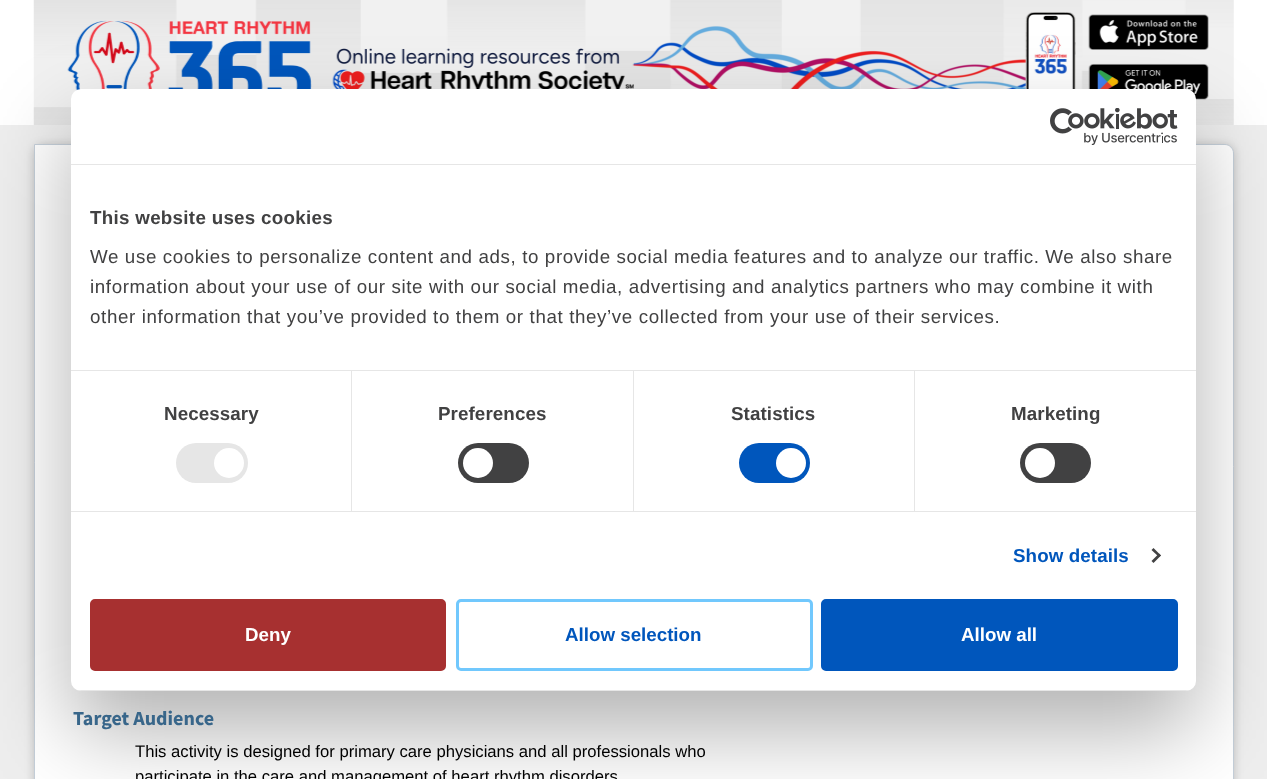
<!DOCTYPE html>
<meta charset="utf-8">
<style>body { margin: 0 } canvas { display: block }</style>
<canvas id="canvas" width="1267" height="779"></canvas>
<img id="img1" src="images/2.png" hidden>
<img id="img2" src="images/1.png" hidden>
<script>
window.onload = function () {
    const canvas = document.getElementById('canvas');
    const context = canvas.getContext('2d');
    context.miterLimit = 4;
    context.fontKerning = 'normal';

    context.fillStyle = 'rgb(238, 238, 238)';
    context.fillRect(0, 0, 1267, 779);
    context.fillStyle = 'rgb(255, 255, 255)';
    context.fillRect(0, 0, 1267, 125);
    context.drawImage(document.getElementById('img1'), 33, 0, 1201, 125);
    context.fillStyle = 'rgba(0, 0, 0, 0.2)';
    context.filter = 'blur(5px)';
    context.beginPath();
    context.roundRect(34, 145, 1200, 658, 9);
    context.fill();
    context.filter = 'none';
    context.fillStyle = 'rgb(255, 255, 255)';
    context.beginPath();
    context.moveTo(34.5, 144.5);
    context.lineTo(1225, 144.5);
    context.bezierCurveTo(1229.5, 144.5, 1233.5, 148.5, 1233.5, 153);
    context.lineTo(1233.5, 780);
    context.bezierCurveTo(1233.5, 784.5, 1229.5, 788.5, 1225, 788.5);
    context.lineTo(34.5, 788.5);
    context.closePath();
    context.fill();
    context.strokeStyle = 'rgb(197, 207, 217)';
    context.stroke();
    context.fillStyle = 'rgba(0, 0, 0, 0.3)';
    context.filter = 'blur(42.5px)';
    context.beginPath();
    context.roundRect(71, 129, 1125, 602, 10);
    context.fill();
    context.filter = 'none';
    context.fillStyle = 'rgb(255, 255, 255)';
    context.beginPath();
    context.roundRect(71, 89, 1125, 602, 10);
    context.fill();
    context.fillStyle = 'rgb(230, 230, 230)';
    context.fillRect(71, 164, 1125, 1);
    context.drawImage(document.getElementById('img2'), 1050, 108, 128, 37);
    context.fillRect(71, 370, 1125, 1);
    context.fillRect(71, 511, 1125, 1);
    context.fillRect(351, 371, 1, 140);
    context.beginPath();
    context.roundRect(176, 443, 72, 40, 20);
    context.fill();
    context.fillStyle = 'rgb(255, 255, 255)';
    context.beginPath();
    context.arc(229, 463, 15, 0, 2 * Math.PI);
    context.fill();
    context.fillStyle = 'rgb(230, 230, 230)';
    context.fillRect(633, 371, 1, 140);
    context.fillStyle = 'rgb(65, 65, 66)';
    context.beginPath();
    context.roundRect(458, 443, 71, 40, 20);
    context.fill();
    context.fillStyle = 'rgb(255, 255, 255)';
    context.beginPath();
    context.arc(478, 463, 15, 0, 2 * Math.PI);
    context.fill();
    context.fillStyle = 'rgb(230, 230, 230)';
    context.fillRect(914, 371, 1, 140);
    context.fillStyle = 'rgb(0, 86, 188)';
    context.beginPath();
    context.roundRect(739, 443, 71, 40, 20);
    context.fill();
    context.fillStyle = 'rgb(255, 255, 255)';
    context.beginPath();
    context.arc(791, 463, 15, 0, 2 * Math.PI);
    context.fill();
    context.fillStyle = 'rgb(65, 65, 66)';
    context.beginPath();
    context.roundRect(1020, 443, 71, 40, 20);
    context.fill();
    context.fillStyle = 'rgb(255, 255, 255)';
    context.beginPath();
    context.arc(1040, 463, 15, 0, 2 * Math.PI);
    context.fill();
    context.fillStyle = 'rgb(65, 65, 66)';
    context.beginPath();
    context.moveTo(1153.5, 548);
    context.lineTo(1161, 555.5);
    context.lineTo(1159, 557);
    context.lineTo(1151.5, 550);
    context.closePath();
    context.fill();
    context.beginPath();
    context.moveTo(1159, 553.5);
    context.lineTo(1161, 555.5);
    context.lineTo(1153.5, 563);
    context.lineTo(1151.5, 561);
    context.closePath();
    context.fill();
    context.save();
    context.beginPath();
    context.roundRect(71, 89, 1125, 602, 10);
    context.clip();
    context.fillStyle = 'rgb(230, 230, 230)';
    context.fillRect(71, 690, 1125, 1);
    context.restore();
    context.fillStyle = 'rgb(167, 48, 48)';
    context.beginPath();
    context.roundRect(91.5, 600.5, 353, 69, 3.5);
    context.fill();
    context.strokeStyle = 'rgb(167, 48, 48)';
    context.lineWidth = 3;
    context.stroke();
    context.beginPath();
    context.roundRect(457.5, 600.5, 354, 69, 3.5);
    context.strokeStyle = 'rgb(113, 200, 253)';
    context.stroke();
    context.fillStyle = 'rgb(0, 86, 188)';
    context.beginPath();
    context.roundRect(822.5, 600.5, 354, 69, 3.5);
    context.fill();
    context.strokeStyle = 'rgb(0, 86, 188)';
    context.stroke();
    context.letterSpacing = '0.3px';
    context.font = 'bold 18.75px Liberation Sans';
    context.fillStyle = 'rgb(65, 65, 66)';
    context.fillText('This website uses cookies', 90, 224);
    context.letterSpacing = '0.62px';
    context.font = '18.75px Liberation Sans';
    context.fillText('We use cookies to personalize content and ads, to provide social media features and to analyze our traffic. We also share', 90, 263);
    context.fillText('information about your use of our site with our social media, advertising and analytics partners who may combine it with', 90, 293);
    context.fillText('other information that you’ve provided to them or that they’ve collected from your use of their services.', 90, 323);
    context.letterSpacing = '0.1px';
    context.font = 'bold 18.75px Liberation Sans';
    context.fillText('Necessary', 164, 420);
    context.fillText('Preferences', 438, 420);
    context.fillText('Statistics', 731, 420);
    context.fillText('Marketing', 1011, 420);
    context.fillStyle = 'rgb(0, 86, 188)';
    context.fillText('Show details', 1013, 562);
    context.letterSpacing = '0px';
    context.fillStyle = 'rgb(255, 255, 255)';
    context.fillText('Deny', 245, 641);
    context.fillStyle = 'rgb(0, 86, 188)';
    context.fillText('Allow selection', 565, 641);
    context.fillStyle = 'rgb(255, 255, 255)';
    context.fillText('Allow all', 961, 641);
    context.font = 'bold 20px Source Sans Pro';
    context.fillStyle = 'rgb(56, 102, 138)';
    context.fillText('Target Audience', 73, 725);
    context.font = '16.65px Liberation Sans';
    context.fillStyle = 'rgb(0, 0, 0)';
    context.fillText('This activity is designed for primary care physicians and all professionals who', 135, 757);
    context.fillText('participate in the care and management of heart rhythm disorders', 135, 782);
};
</script>
